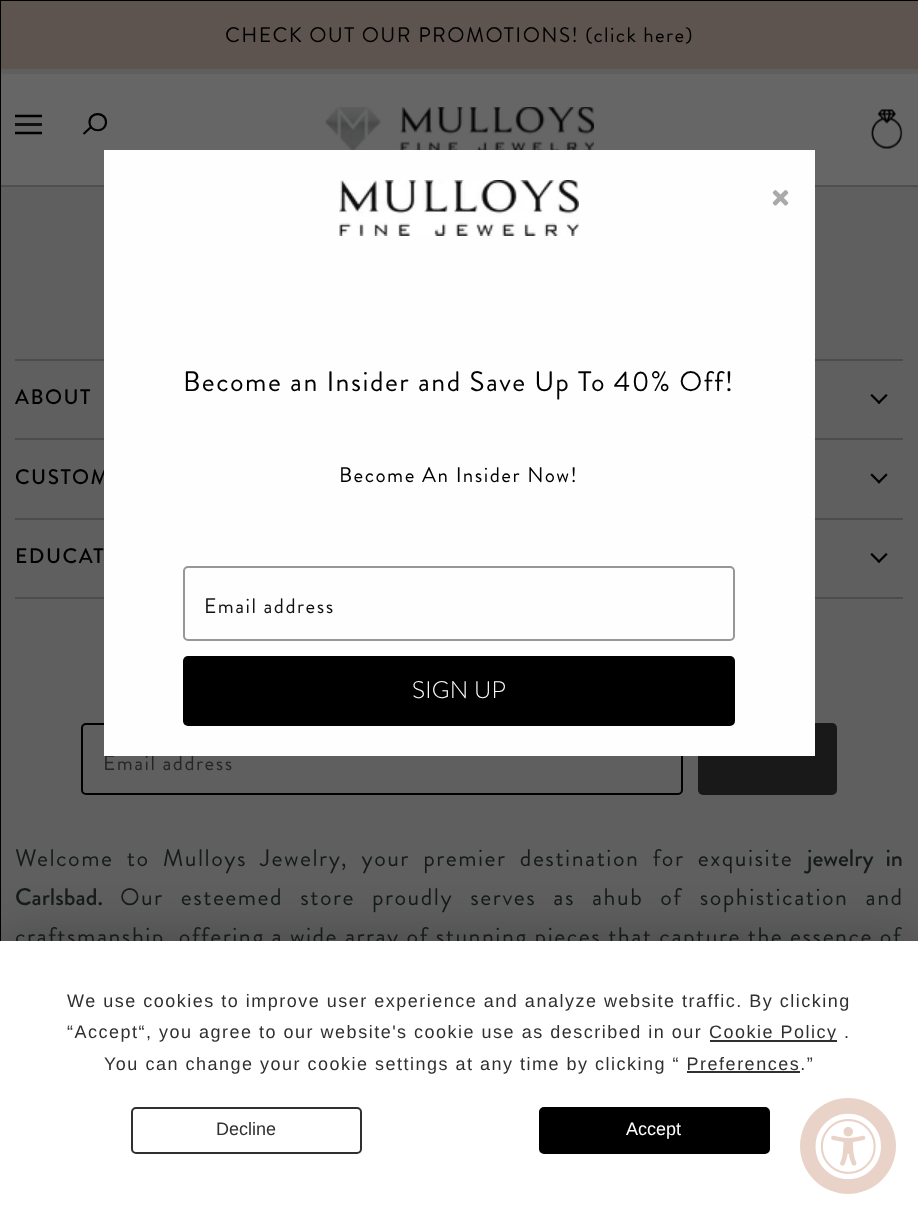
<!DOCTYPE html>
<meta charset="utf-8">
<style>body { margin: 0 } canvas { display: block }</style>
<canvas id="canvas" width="918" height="1216"></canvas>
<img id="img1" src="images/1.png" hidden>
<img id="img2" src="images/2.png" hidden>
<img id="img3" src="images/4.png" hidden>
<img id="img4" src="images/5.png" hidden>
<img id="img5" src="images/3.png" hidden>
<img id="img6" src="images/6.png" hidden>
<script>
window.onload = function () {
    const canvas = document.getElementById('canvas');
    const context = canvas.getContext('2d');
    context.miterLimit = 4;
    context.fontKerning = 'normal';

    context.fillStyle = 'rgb(95, 95, 95)';
    context.fillRect(0, 0, 918, 1216);
    context.fillStyle = 'rgb(93, 84, 80)';
    context.fillRect(1, 1, 917, 68);
    context.fillStyle = 'rgb(102, 102, 102)';
    context.fillRect(1, 74, 917, 112);
    context.fillStyle = 'rgba(60, 60, 60, 0.5)';
    context.fillRect(0, 185, 918, 2);
    context.drawImage(document.getElementById('img1'), 325, 107, 269, 43);
    context.save();
    context.beginPath();
    context.rect(15, 111, 27, 27);
    context.clip();
    context.beginPath();
    context.moveTo(41, 116);
    context.lineTo(16, 116);
    context.strokeStyle = 'rgb(0, 0, 0)';
    context.lineWidth = 2.5;
    context.lineCap = 'square';
    context.lineJoin = 'round';
    context.stroke();
    context.restore();
    context.fillStyle = 'rgb(17, 17, 17)';
    context.fillRect(15, 123, 27, 3);
    context.save();
    context.beginPath();
    context.rect(15, 111, 27, 27);
    context.clip();
    context.beginPath();
    context.moveTo(41, 133);
    context.lineTo(16, 133);
    context.strokeStyle = 'rgb(0, 0, 0)';
    context.lineWidth = 2.5;
    context.lineCap = 'square';
    context.lineJoin = 'round';
    context.stroke();
    context.restore();
    context.beginPath();
    context.moveTo(83.5, 134);
    context.lineTo(91, 127);
    context.moveTo(106, 122);
    context.bezierCurveTo(106, 133, 89.5, 133, 89.5, 122);
    context.bezierCurveTo(89.5, 111.5, 106, 111.5, 106, 122);
    context.closePath();
    context.strokeStyle = 'rgb(0, 0, 0)';
    context.lineWidth = 2.1;
    context.stroke();
    context.drawImage(document.getElementById('img2'), 871, 109, 32, 40);
    context.fillStyle = 'rgb(76, 76, 76)';
    context.fillRect(15, 359, 888, 2);
    context.fillRect(15, 438, 888, 2);
    context.drawImage(document.getElementById('img3'), 870, 394, 18, 10);
    context.fillRect(15, 518, 888, 2);
    context.drawImage(document.getElementById('img4'), 870, 473, 18, 11);
    context.fillRect(15, 597, 888, 2);
    context.drawImage(document.getElementById('img3'), 870, 553, 18, 10);
    context.beginPath();
    context.roundRect(82, 724, 600, 70, 4);
    context.lineWidth = 2;
    context.stroke();
    context.fillStyle = 'rgb(25, 25, 25)';
    context.beginPath();
    context.roundRect(698, 723, 139, 72, 5);
    context.fill();
    context.lineWidth = 5;
    context.strokeRect(-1.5, -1.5, 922, 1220);
    context.fillStyle = 'rgba(0, 0, 0, 0.25)';
    context.filter = 'blur(26px)';
    context.beginPath();
    context.rect(0, 941, 918, 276);
    context.fill();
    context.filter = 'none';
    context.letterSpacing = '1.4px';
    context.font = '21px Brandon Grotesque';
    context.fillStyle = 'rgb(0, 0, 0)';
    context.fillText('CHECK OUT OUR PROMOTIONS! (click here)', 225, 42);
    context.letterSpacing = '1.5px';
    context.font = '500 21px Brandon Grotesque';
    context.fillText('ABOUT', 15, 404);
    context.fillText('CUSTOM', 15, 484);
    context.fillText('EDUCAT', 15, 563);
    context.font = '21px Brandon Grotesque';
    context.fillStyle = 'rgb(38, 38, 38)';
    context.fillText('Email address', 103, 770);
    context.fillStyle = 'rgb(254, 254, 254)';
    context.fillRect(104, 150, 711, 606);
    context.beginPath();
    context.roundRect(184, 567, 550, 73, 4);
    context.strokeStyle = 'rgb(151, 151, 151)';
    context.lineWidth = 2;
    context.stroke();
    context.fillStyle = 'rgb(17, 17, 17)';
    context.fillText('Email address', 204, 613);
    context.fillStyle = 'rgb(0, 0, 0)';
    context.beginPath();
    context.roundRect(183, 656, 552, 70, 5);
    context.fill();
    context.letterSpacing = '0.25px';
    context.font = '300 24px Brandon Grotesque';
    context.fillStyle = 'rgb(255, 255, 255)';
    context.fillText('SIGN UP', 412, 698);
    context.letterSpacing = '1.5px';
    context.font = 'bold 42px Brandon Grotesque';
    context.fillStyle = 'rgb(170, 170, 170)';
    context.fillText('×', 770, 213);
    context.font = '21.1px Brandon Grotesque';
    context.fillStyle = 'rgb(0, 0, 0)';
    context.fillText('Become An Insider Now!', 339, 482);
    context.font = '28.1px Brandon Grotesque';
    context.fillText('Become an Insider and Save Up To 40% Off!', 183, 391);
    context.drawImage(document.getElementById('img5'), 339, 180, 240, 56);
    context.wordSpacing = '6.5px';
    context.font = '24px Brandon Grotesque';
    context.fillStyle = 'rgb(20, 27, 26)';
    context.fillText('Welcome to Mulloys Jewelry, your premier destination for exquisite', 15, 866);
    context.letterSpacing = '0px';
    context.font = '500 24px Brandon Grotesque';
    context.fillText('jewelry in', 807, 866);
    context.wordSpacing = '0px';
    context.fillText('Carlsbad.', 15, 905);
    context.letterSpacing = '1.5px';
    context.wordSpacing = '10.25px';
    context.font = '24px Brandon Grotesque';
    context.fillText('Our esteemed store proudly serves as ahub of sophistication and', 120, 905);
    context.wordSpacing = '0px';
    context.fillText('craftsmanship, offering a wide array of stunning pieces that capture the essence of', 15, 944);
    context.fillStyle = 'rgb(255, 255, 255)';
    context.fillRect(0, 941, 918, 275);
    context.font = '18px Liberation Sans';
    context.fillStyle = 'rgb(48, 48, 48)';
    context.fillText('We use cookies to improve user experience and analyze website traffic. By clicking', 67, 1007);
    context.fillText('“Accept“, you agree to our website\'s cookie use as described in our', 67, 1038);
    context.fillRect(710, 1040, 127, 2);
    context.fillText('Cookie Policy .', 709, 1038);
    context.fillText('You can change your cookie settings at any time by clicking “ Preferences.”', 104, 1070);
    context.fillRect(687, 1071, 113, 2);
    context.beginPath();
    context.roundRect(132, 1108, 229, 45, 4);
    context.strokeStyle = 'rgb(48, 48, 48)';
    context.stroke();
    context.letterSpacing = '0px';
    context.fillText('Decline', 216, 1135);
    context.fillStyle = 'rgb(0, 0, 0)';
    context.beginPath();
    context.roundRect(540, 1108, 229, 45, 4);
    context.fill();
    context.strokeStyle = 'rgb(0, 0, 0)';
    context.stroke();
    context.fillStyle = 'rgb(255, 255, 255)';
    context.fillText('Accept', 626, 1135);
    context.fillStyle = 'rgb(233, 211, 200)';
    context.beginPath();
    context.arc(848, 1146, 48, 0, 2 * Math.PI);
    context.fill();
    context.drawImage(document.getElementById('img6'), 815, 1113, 66, 67);
};
</script>
